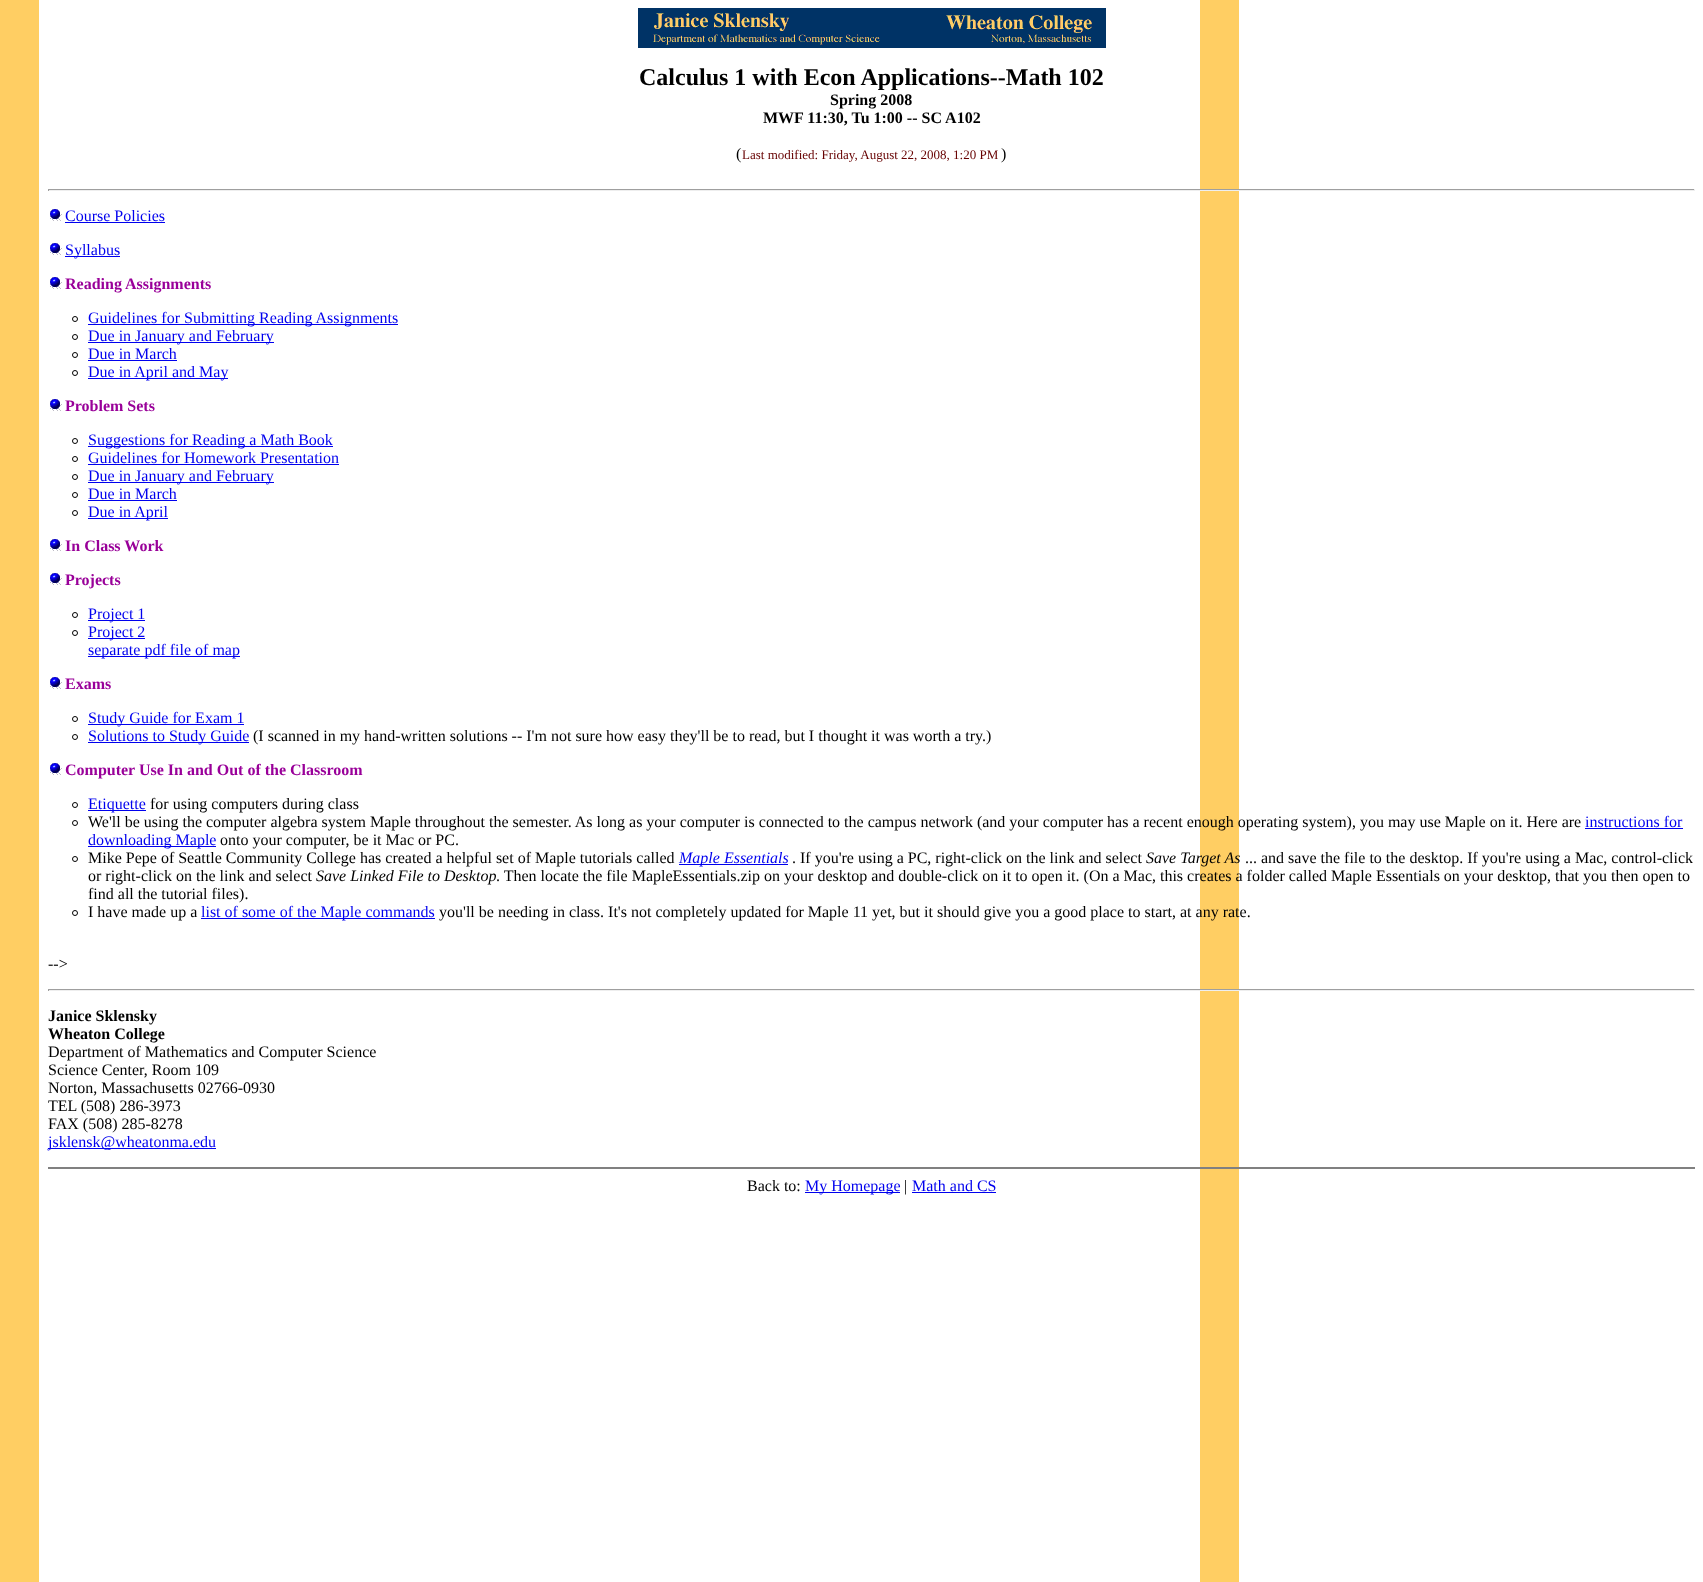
<!DOCTYPE html>
<meta charset="utf-8">
<style>body { margin: 0 } canvas { display: block }</style>
<canvas id="canvas" width="1703" height="1582"></canvas>
<img id="img1" src="images/1.png" hidden>
<img id="img2" src="images/2.png" hidden>
<img id="img3" src="images/3.png" hidden>
<script>
window.onload = function () {
    const canvas = document.getElementById('canvas');
    const context = canvas.getContext('2d');
    context.miterLimit = 4;
    context.fontKerning = 'normal';

    context.fillStyle = 'rgb(255, 255, 255)';
    context.fillRect(0, 0, 1703, 1582);
    context.drawImage(document.getElementById('img1'), 0, 0, 1239, 1582);
    context.drawImage(document.getElementById('img2'), 638, 8, 468, 40);
    context.fillStyle = 'rgb(159, 159, 159)';
    context.fillRect(48, 189, 1647, 1);
    context.fillStyle = 'rgb(238, 238, 238)';
    context.fillRect(1694, 189, 1, 2);
    context.fillRect(48, 190, 1647, 1);
    context.fillStyle = 'rgb(159, 159, 159)';
    context.fillRect(48, 189, 1, 2);
    context.drawImage(document.getElementById('img3'), 50, 209, 12, 12);
    context.fillStyle = 'rgb(0, 0, 238)';
    context.fillRect(65, 222, 100, 1);
    context.drawImage(document.getElementById('img3'), 50, 243, 12, 12);
    context.fillRect(65, 256, 55, 1);
    context.drawImage(document.getElementById('img3'), 50, 277, 12, 12);
    context.beginPath();
    context.arc(75, 319, 2.5, 0, 2 * Math.PI);
    context.strokeStyle = 'rgb(0, 0, 0)';
    context.stroke();
    context.fillRect(88, 324, 310, 1);
    context.beginPath();
    context.arc(75, 337, 2.5, 0, 2 * Math.PI);
    context.stroke();
    context.fillRect(88, 342, 186, 1);
    context.beginPath();
    context.arc(75, 355, 2.5, 0, 2 * Math.PI);
    context.stroke();
    context.fillRect(88, 360, 89, 1);
    context.beginPath();
    context.arc(75, 373, 2.5, 0, 2 * Math.PI);
    context.stroke();
    context.fillRect(88, 378, 140, 1);
    context.drawImage(document.getElementById('img3'), 50, 399, 12, 12);
    context.beginPath();
    context.arc(75, 441, 2.5, 0, 2 * Math.PI);
    context.stroke();
    context.fillRect(88, 446, 245, 1);
    context.beginPath();
    context.arc(75, 459, 2.5, 0, 2 * Math.PI);
    context.stroke();
    context.fillRect(88, 464, 251, 1);
    context.beginPath();
    context.arc(75, 477, 2.5, 0, 2 * Math.PI);
    context.stroke();
    context.fillRect(88, 482, 186, 1);
    context.beginPath();
    context.arc(75, 495, 2.5, 0, 2 * Math.PI);
    context.stroke();
    context.fillRect(88, 500, 89, 1);
    context.beginPath();
    context.arc(75, 513, 2.5, 0, 2 * Math.PI);
    context.stroke();
    context.fillRect(88, 518, 80, 1);
    context.drawImage(document.getElementById('img3'), 50, 539, 12, 12);
    context.drawImage(document.getElementById('img3'), 50, 573, 12, 12);
    context.beginPath();
    context.arc(75, 615, 2.5, 0, 2 * Math.PI);
    context.stroke();
    context.fillRect(88, 620, 57, 1);
    context.beginPath();
    context.arc(75, 633, 2.5, 0, 2 * Math.PI);
    context.stroke();
    context.fillRect(88, 638, 57, 1);
    context.fillRect(88, 656, 152, 1);
    context.drawImage(document.getElementById('img3'), 50, 677, 12, 12);
    context.beginPath();
    context.arc(75, 719, 2.5, 0, 2 * Math.PI);
    context.stroke();
    context.fillRect(88, 724, 156, 1);
    context.beginPath();
    context.arc(75, 737, 2.5, 0, 2 * Math.PI);
    context.stroke();
    context.fillRect(88, 742, 161, 1);
    context.drawImage(document.getElementById('img3'), 50, 763, 12, 12);
    context.beginPath();
    context.arc(75, 805, 2.5, 0, 2 * Math.PI);
    context.stroke();
    context.fillRect(88, 810, 58, 1);
    context.beginPath();
    context.arc(75, 823, 2.5, 0, 2 * Math.PI);
    context.stroke();
    context.fillRect(1585, 828, 98, 1);
    context.fillRect(88, 846, 128, 1);
    context.beginPath();
    context.arc(75, 859, 2.5, 0, 2 * Math.PI);
    context.stroke();
    context.fillRect(679, 864, 109, 1);
    context.beginPath();
    context.arc(75, 913, 2.5, 0, 2 * Math.PI);
    context.stroke();
    context.fillRect(201, 918, 234, 1);
    context.fillStyle = 'rgb(159, 159, 159)';
    context.fillRect(48, 989, 1647, 1);
    context.fillStyle = 'rgb(238, 238, 238)';
    context.fillRect(1694, 989, 1, 2);
    context.fillRect(48, 990, 1647, 1);
    context.fillStyle = 'rgb(159, 159, 159)';
    context.fillRect(48, 989, 1, 2);
    context.fillStyle = 'rgb(0, 0, 238)';
    context.fillRect(48, 1148, 168, 1);
    context.fillStyle = 'rgb(128, 128, 128)';
    context.fillRect(48, 1167, 1647, 2);
    context.fillStyle = 'rgb(0, 0, 238)';
    context.fillRect(805, 1192, 95, 1);
    context.fillRect(912, 1192, 84, 1);
    context.font = 'bold 24px Liberation Serif';
    context.fillStyle = 'rgb(0, 0, 0)';
    context.fillText('Calculus 1 with Econ Applications--Math 102', 639, 85);
    context.font = 'bold 16px Liberation Serif';
    context.fillText('Spring 2008', 830, 105);
    context.fillText('MWF 11:30, Tu 1:00 -- SC A102', 763, 123);
    context.font = '16px Liberation Serif';
    context.fillText('(', 736, 159);
    context.font = '13px Liberation Serif';
    context.fillStyle = 'rgb(102, 0, 0)';
    context.fillText('Last modified: Friday, August 22, 2008, 1:20 PM', 742, 159);
    context.font = '16px Liberation Serif';
    context.fillStyle = 'rgb(0, 0, 0)';
    context.fillText(')', 1001, 159);
    context.fillStyle = 'rgb(0, 0, 238)';
    context.fillText('Course Policies', 65, 221);
    context.fillText('Syllabus', 65, 255);
    context.font = 'bold 16px Liberation Serif';
    context.fillStyle = 'rgb(153, 0, 153)';
    context.fillText('Reading Assignments', 65, 289);
    context.font = '16px Liberation Serif';
    context.fillStyle = 'rgb(0, 0, 238)';
    context.fillText('Guidelines for Submitting Reading Assignments', 88, 323);
    context.fillText('Due in January and February', 88, 341);
    context.fillText('Due in March', 88, 359);
    context.fillText('Due in April and May', 88, 377);
    context.font = 'bold 16px Liberation Serif';
    context.fillStyle = 'rgb(153, 0, 153)';
    context.fillText('Problem Sets', 65, 411);
    context.font = '16px Liberation Serif';
    context.fillStyle = 'rgb(0, 0, 238)';
    context.fillText('Suggestions for Reading a Math Book', 88, 445);
    context.fillText('Guidelines for Homework Presentation', 88, 463);
    context.fillText('Due in January and February', 88, 481);
    context.fillText('Due in March', 88, 499);
    context.fillText('Due in April', 88, 517);
    context.font = 'bold 16px Liberation Serif';
    context.fillStyle = 'rgb(153, 0, 153)';
    context.fillText('In Class Work', 65, 551);
    context.fillText('Projects', 65, 585);
    context.font = '16px Liberation Serif';
    context.fillStyle = 'rgb(0, 0, 238)';
    context.fillText('Project 1', 88, 619);
    context.fillText('Project 2', 88, 637);
    context.fillText('separate pdf file of map', 88, 655);
    context.font = 'bold 16px Liberation Serif';
    context.fillStyle = 'rgb(153, 0, 153)';
    context.fillText('Exams', 65, 689);
    context.font = '16px Liberation Serif';
    context.fillStyle = 'rgb(0, 0, 238)';
    context.fillText('Study Guide for Exam 1', 88, 723);
    context.fillText('Solutions to Study Guide', 88, 741);
    context.fillStyle = 'rgb(0, 0, 0)';
    context.fillText('(I scanned in my hand-written solutions -- I\'m not sure how easy they\'ll be to read, but I thought it was worth a try.)', 253, 741);
    context.font = 'bold 16px Liberation Serif';
    context.fillStyle = 'rgb(153, 0, 153)';
    context.fillText('Computer Use In and Out of the Classroom', 65, 775);
    context.font = '16px Liberation Serif';
    context.fillStyle = 'rgb(0, 0, 238)';
    context.fillText('Etiquette', 88, 809);
    context.fillStyle = 'rgb(0, 0, 0)';
    context.fillText('for using computers during class', 150, 809);
    context.fillText('We\'ll be using the computer algebra system Maple throughout the semester. As long as your computer is connected to the campus network (and your computer has a recent enough operating system), you may use Maple on it. Here are', 88, 827);
    context.fillStyle = 'rgb(0, 0, 238)';
    context.fillText('instructions for', 1585, 827);
    context.fillText('downloading Maple', 88, 845);
    context.fillStyle = 'rgb(0, 0, 0)';
    context.fillText('onto your computer, be it Mac or PC.', 220, 845);
    context.fillText('Mike Pepe of Seattle Community College has created a helpful set of Maple tutorials called', 88, 863);
    context.font = 'italic 16px Liberation Serif';
    context.fillStyle = 'rgb(0, 0, 238)';
    context.fillText('Maple Essentials', 679, 863);
    context.font = '16px Liberation Serif';
    context.fillStyle = 'rgb(0, 0, 0)';
    context.fillText('. If you\'re using a PC, right-click on the link and select', 792, 863);
    context.font = 'italic 16px Liberation Serif';
    context.fillText('Save Target As', 1146, 863);
    context.font = '16px Liberation Serif';
    context.fillText('... and save the file to the desktop. If you\'re using a Mac, control-click', 1245, 863);
    context.fillText('or right-click on the link and select', 88, 881);
    context.font = 'italic 16px Liberation Serif';
    context.fillText('Save Linked File to Desktop', 316, 881);
    context.font = '16px Liberation Serif';
    context.fillText('. Then locate the file MapleEssentials.zip on your desktop and double-click on it to open it. (On a Mac, this creates a folder called Maple Essentials on your desktop, that you then open to', 496, 881);
    context.fillText('find all the tutorial files).', 88, 899);
    context.fillText('I have made up a', 88, 917);
    context.fillStyle = 'rgb(0, 0, 238)';
    context.fillText('list of some of the Maple commands', 201, 917);
    context.fillStyle = 'rgb(0, 0, 0)';
    context.fillText('you\'ll be needing in class. It\'s not completely updated for Maple 11 yet, but it should give you a good place to start, at any rate.', 439, 917);
    context.fillText('-->', 48, 969);
    context.font = 'bold 16px Liberation Serif';
    context.fillText('Janice Sklensky', 48, 1021);
    context.fillText('Wheaton College', 48, 1039);
    context.font = '16px Liberation Serif';
    context.fillText('Department of Mathematics and Computer Science', 48, 1057);
    context.fillText('Science Center, Room 109', 48, 1075);
    context.fillText('Norton, Massachusetts 02766-0930', 48, 1093);
    context.fillText('TEL (508) 286-3973', 48, 1111);
    context.fillText('FAX (508) 285-8278', 48, 1129);
    context.fillStyle = 'rgb(0, 0, 238)';
    context.fillText('jsklensk@wheatonma.edu', 48, 1147);
    context.fillStyle = 'rgb(0, 0, 0)';
    context.fillText('Back to:', 747, 1191);
    context.fillStyle = 'rgb(0, 0, 238)';
    context.fillText('My Homepage', 805, 1191);
    context.fillStyle = 'rgb(0, 0, 0)';
    context.fillText('|', 904, 1191);
    context.fillStyle = 'rgb(0, 0, 238)';
    context.fillText('Math and CS', 912, 1191);
};
</script>
